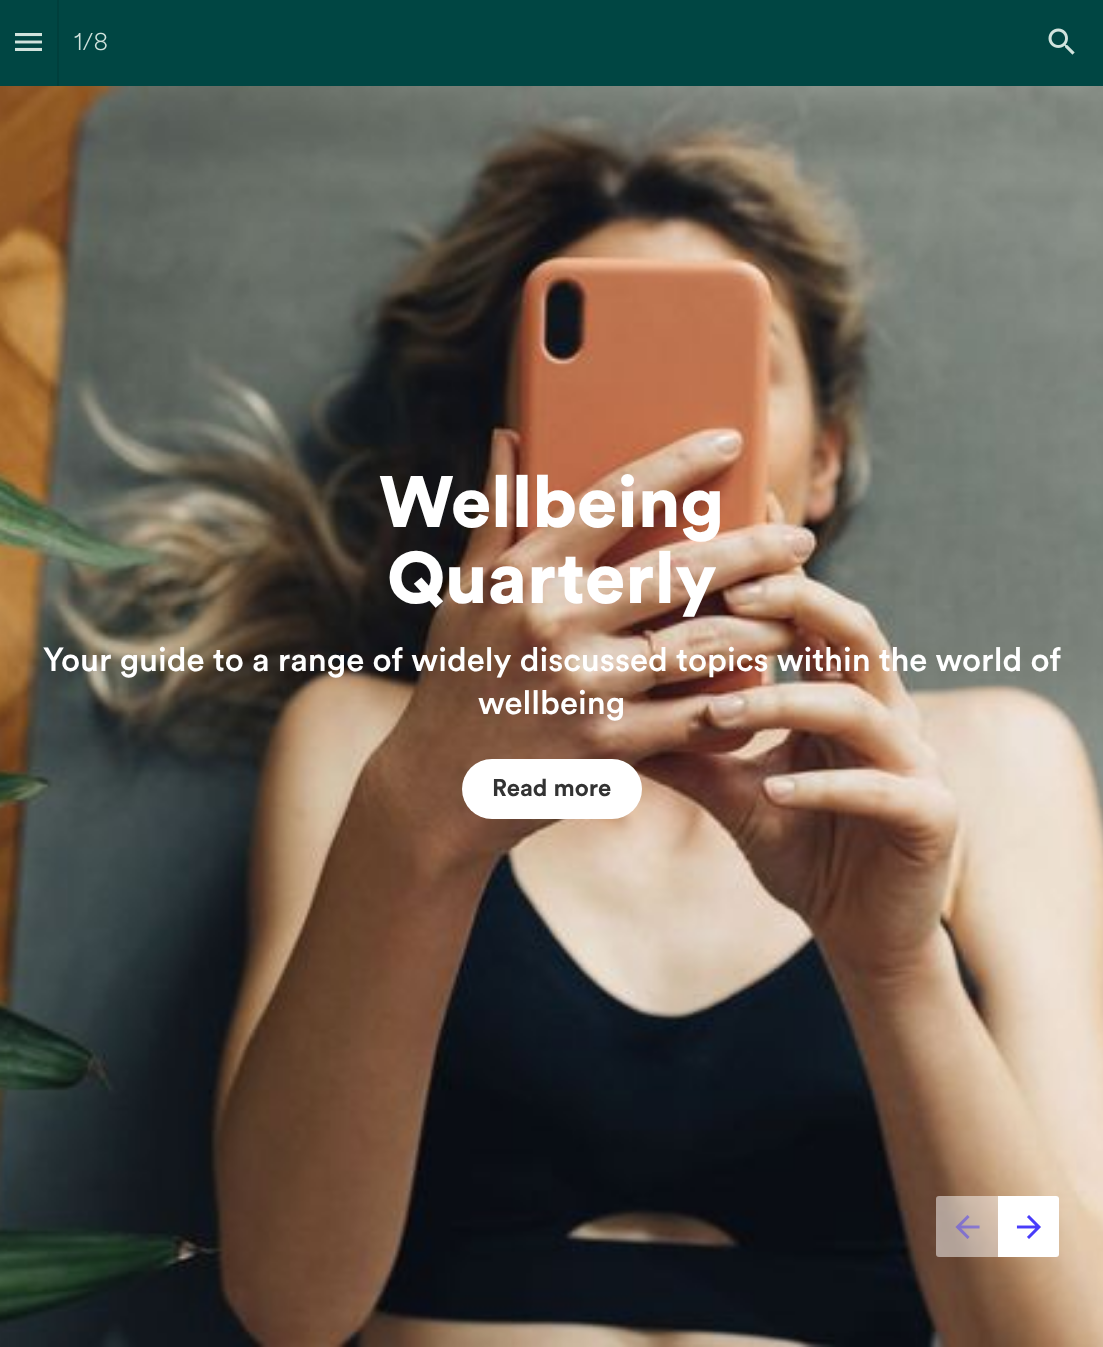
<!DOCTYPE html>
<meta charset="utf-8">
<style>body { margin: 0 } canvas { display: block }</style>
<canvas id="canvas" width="1103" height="1347"></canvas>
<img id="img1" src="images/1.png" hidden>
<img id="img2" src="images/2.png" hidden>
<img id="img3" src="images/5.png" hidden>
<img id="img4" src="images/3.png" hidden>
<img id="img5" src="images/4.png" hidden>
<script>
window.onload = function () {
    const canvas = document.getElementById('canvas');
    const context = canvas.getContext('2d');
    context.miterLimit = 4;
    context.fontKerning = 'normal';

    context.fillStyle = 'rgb(255, 255, 255)';
    context.fillRect(0, 0, 1103, 1347);
    context.fillStyle = 'rgb(0, 70, 67)';
    context.fillRect(0, 0, 1103, 86);
    context.drawImage(document.getElementById('img1'), 15, 33, 27, 18);
    context.fillStyle = 'rgb(0, 63, 60)';
    context.fillRect(57, 0, 2, 86);
    context.drawImage(document.getElementById('img2'), 1048, 28, 27, 27);
    context.drawImage(document.getElementById('img3'), 0, 86, 1103, 1261);
    context.fillStyle = 'rgba(255, 255, 255, 0.5)';
    context.beginPath();
    context.roundRect(936, 1196, 62, 61, [3, 0, 0, 3]);
    context.fill();
    context.drawImage(document.getElementById('img4'), 955, 1215, 25, 24);
    context.fillStyle = 'rgb(255, 255, 255)';
    context.beginPath();
    context.roundRect(998, 1196, 61, 61, [0, 3, 3, 0]);
    context.fill();
    context.drawImage(document.getElementById('img5'), 1016, 1215, 25, 24);
    context.beginPath();
    context.roundRect(462, 759, 180, 60, 30);
    context.fill();
    context.font = '300 24px Circular';
    context.fillStyle = 'rgb(209, 227, 221)';
    context.fillText('1/8', 74, 50);
    context.font = '900 72px Circular';
    context.fillStyle = 'rgb(255, 255, 255)';
    context.fillText('Wellbeing', 379, 527);
    context.fillText('Quarterly', 387, 603);
    context.font = '500 33px Circular';
    context.fillText('Your guide to a range of widely discussed topics within the world of', 43, 671);
    context.fillText('wellbeing', 478, 714);
    context.font = 'bold 24px Circular';
    context.fillStyle = 'rgb(51, 51, 51)';
    context.fillText('Read more', 492, 796);
};
</script>
